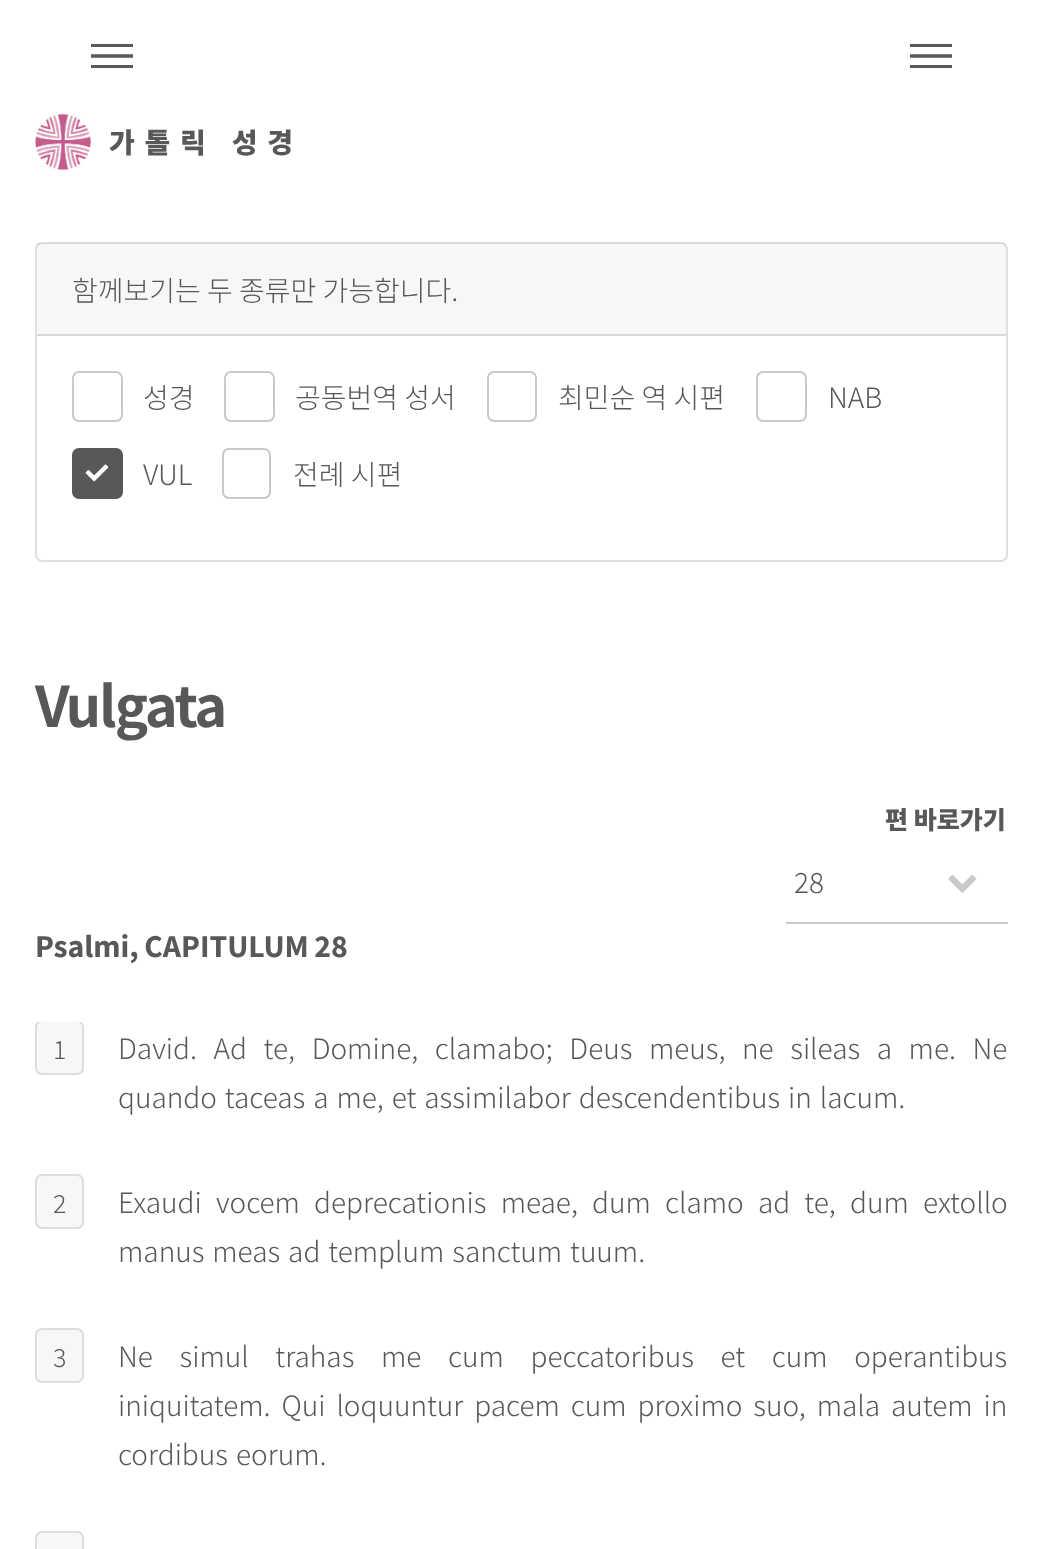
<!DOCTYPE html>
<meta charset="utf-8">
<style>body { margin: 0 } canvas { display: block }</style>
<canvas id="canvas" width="1042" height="1549"></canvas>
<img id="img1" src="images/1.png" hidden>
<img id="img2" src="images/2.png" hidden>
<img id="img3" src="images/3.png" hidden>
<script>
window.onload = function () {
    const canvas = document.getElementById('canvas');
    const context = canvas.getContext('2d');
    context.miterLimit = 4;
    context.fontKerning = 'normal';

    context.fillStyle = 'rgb(255, 255, 255)';
    context.fillRect(0, 0, 1042, 1549);
    context.fillStyle = 'rgb(88, 88, 88)';
    context.fillRect(91, 44, 42, 3);
    context.beginPath();
    context.moveTo(91, 56);
    context.lineTo(133, 56);
    context.strokeStyle = 'rgb(88, 88, 88)';
    context.lineWidth = 3.4;
    context.stroke();
    context.fillRect(91, 65, 42, 3);
    context.fillRect(910, 44, 42, 3);
    context.beginPath();
    context.moveTo(910, 56);
    context.lineTo(952, 56);
    context.stroke();
    context.fillRect(910, 65, 42, 3);
    context.drawImage(document.getElementById('img1'), 35, 113, 56, 57);
    context.beginPath();
    context.roundRect(36, 243, 971, 318, 6);
    context.strokeStyle = 'rgb(223, 223, 223)';
    context.lineWidth = 2;
    context.stroke();
    context.fillStyle = 'rgba(0, 0, 0, 0.03)';
    context.fillRect(37, 243, 969, 91);
    context.fillStyle = 'rgb(216, 216, 216)';
    context.fillRect(37, 334, 969, 2);
    context.beginPath();
    context.roundRect(73, 372, 49, 49, 6);
    context.strokeStyle = 'rgb(201, 201, 201)';
    context.stroke();
    context.beginPath();
    context.roundRect(225, 372, 49, 49, 6);
    context.stroke();
    context.beginPath();
    context.roundRect(488, 372, 48, 49, 6);
    context.stroke();
    context.beginPath();
    context.roundRect(757, 372, 49, 49, 6);
    context.stroke();
    context.fillStyle = 'rgb(88, 88, 88)';
    context.beginPath();
    context.roundRect(73, 449, 49, 49, 6);
    context.fill();
    context.strokeStyle = 'rgb(88, 88, 88)';
    context.stroke();
    context.drawImage(document.getElementById('img2'), 85, 464, 24, 18);
    context.beginPath();
    context.roundRect(223, 449, 47, 49, 6);
    context.strokeStyle = 'rgb(201, 201, 201)';
    context.stroke();
    context.drawImage(document.getElementById('img3'), 948, 874, 29, 19);
    context.fillStyle = 'rgb(201, 201, 201)';
    context.fillRect(786, 922, 222, 2);
    context.fillStyle = 'rgb(247, 247, 247)';
    context.beginPath();
    context.roundRect(35, 1020, 49, 55, 7);
    context.fill();
    context.beginPath();
    context.roundRect(36, 1021, 47, 53, 6);
    context.strokeStyle = 'rgba(144, 144, 144, 0.25)';
    context.stroke();
    context.fillStyle = 'rgb(255, 255, 255)';
    context.fillRect(37, 1020, 45, 2);
    context.fillStyle = 'rgb(247, 247, 247)';
    context.beginPath();
    context.roundRect(35, 1174, 49, 55, 7);
    context.fill();
    context.beginPath();
    context.roundRect(36, 1175, 47, 53, 6);
    context.stroke();
    context.beginPath();
    context.roundRect(35, 1328, 49, 55, 7);
    context.fill();
    context.beginPath();
    context.roundRect(36, 1329, 47, 53, 6);
    context.stroke();
    context.beginPath();
    context.roundRect(35, 1531, 49, 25, 7);
    context.fill();
    context.beginPath();
    context.roundRect(36, 1532, 47, 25, 6);
    context.stroke();
    context.letterSpacing = '9.75px';
    context.font = '900 28px Noto Sans KR';
    context.fillStyle = 'rgb(88, 88, 88)';
    context.fillText('가톨릭 성경', 109, 153);
    context.letterSpacing = '0px';
    context.font = '300 28px Noto Sans KR';
    context.fillText('함께보기는 두 종류만 가능합니다.', 72, 301);
    context.fillText('성경', 143, 408);
    context.fillText('공동번역 성서', 295, 408);
    context.fillText('최민순 역 시편', 558, 408);
    context.fillText('NAB', 828, 408);
    context.fillText('VUL', 143, 485);
    context.fillText('전례 시편', 293, 485);
    context.letterSpacing = '-2px';
    context.font = 'bold 56px Noto Sans KR';
    context.fillText('Vulgata', 35, 727);
    context.letterSpacing = '0px';
    context.font = '900 25px Noto Sans KR';
    context.fillText('편 바로가기', 885, 829);
    context.font = '300 28px Noto Sans KR';
    context.fillText('28', 794, 893);
    context.wordSpacing = '-1px';
    context.font = '800 28px Noto Sans KR';
    context.fillText('Psalmi, CAPITULUM 28', 35, 957);
    context.wordSpacing = '0px';
    context.font = '300 25px Noto Sans KR';
    context.fillText('1', 53, 1059);
    context.wordSpacing = '10.4px';
    context.font = '300 28px Noto Sans KR';
    context.fillText('David. Ad te, Domine, clamabo; Deus meus, ne sileas a me. Ne', 118, 1059);
    context.wordSpacing = '1.75px';
    context.fillText('quando taceas a me, et assimilabor descendentibus in lacum.', 118, 1108);
    context.wordSpacing = '0px';
    context.font = '300 25px Noto Sans KR';
    context.fillText('2', 53, 1213);
    context.wordSpacing = '8px';
    context.font = '300 28px Noto Sans KR';
    context.fillText('Exaudi vocem deprecationis meae, dum clamo ad te, dum extollo', 118, 1213);
    context.wordSpacing = '1.75px';
    context.fillText('manus meas ad templum sanctum tuum.', 118, 1262);
    context.wordSpacing = '0px';
    context.font = '300 25px Noto Sans KR';
    context.fillText('3', 53, 1367);
    context.wordSpacing = '20.5px';
    context.font = '300 28px Noto Sans KR';
    context.fillText('Ne simul trahas me cum peccatoribus et cum operantibus', 118, 1367);
    context.wordSpacing = '4.75px';
    context.fillText('iniquitatem. Qui loquuntur pacem cum proximo suo, mala autem in', 118, 1416);
    context.wordSpacing = '2px';
    context.fillText('cordibus eorum.', 118, 1465);
};
</script>
